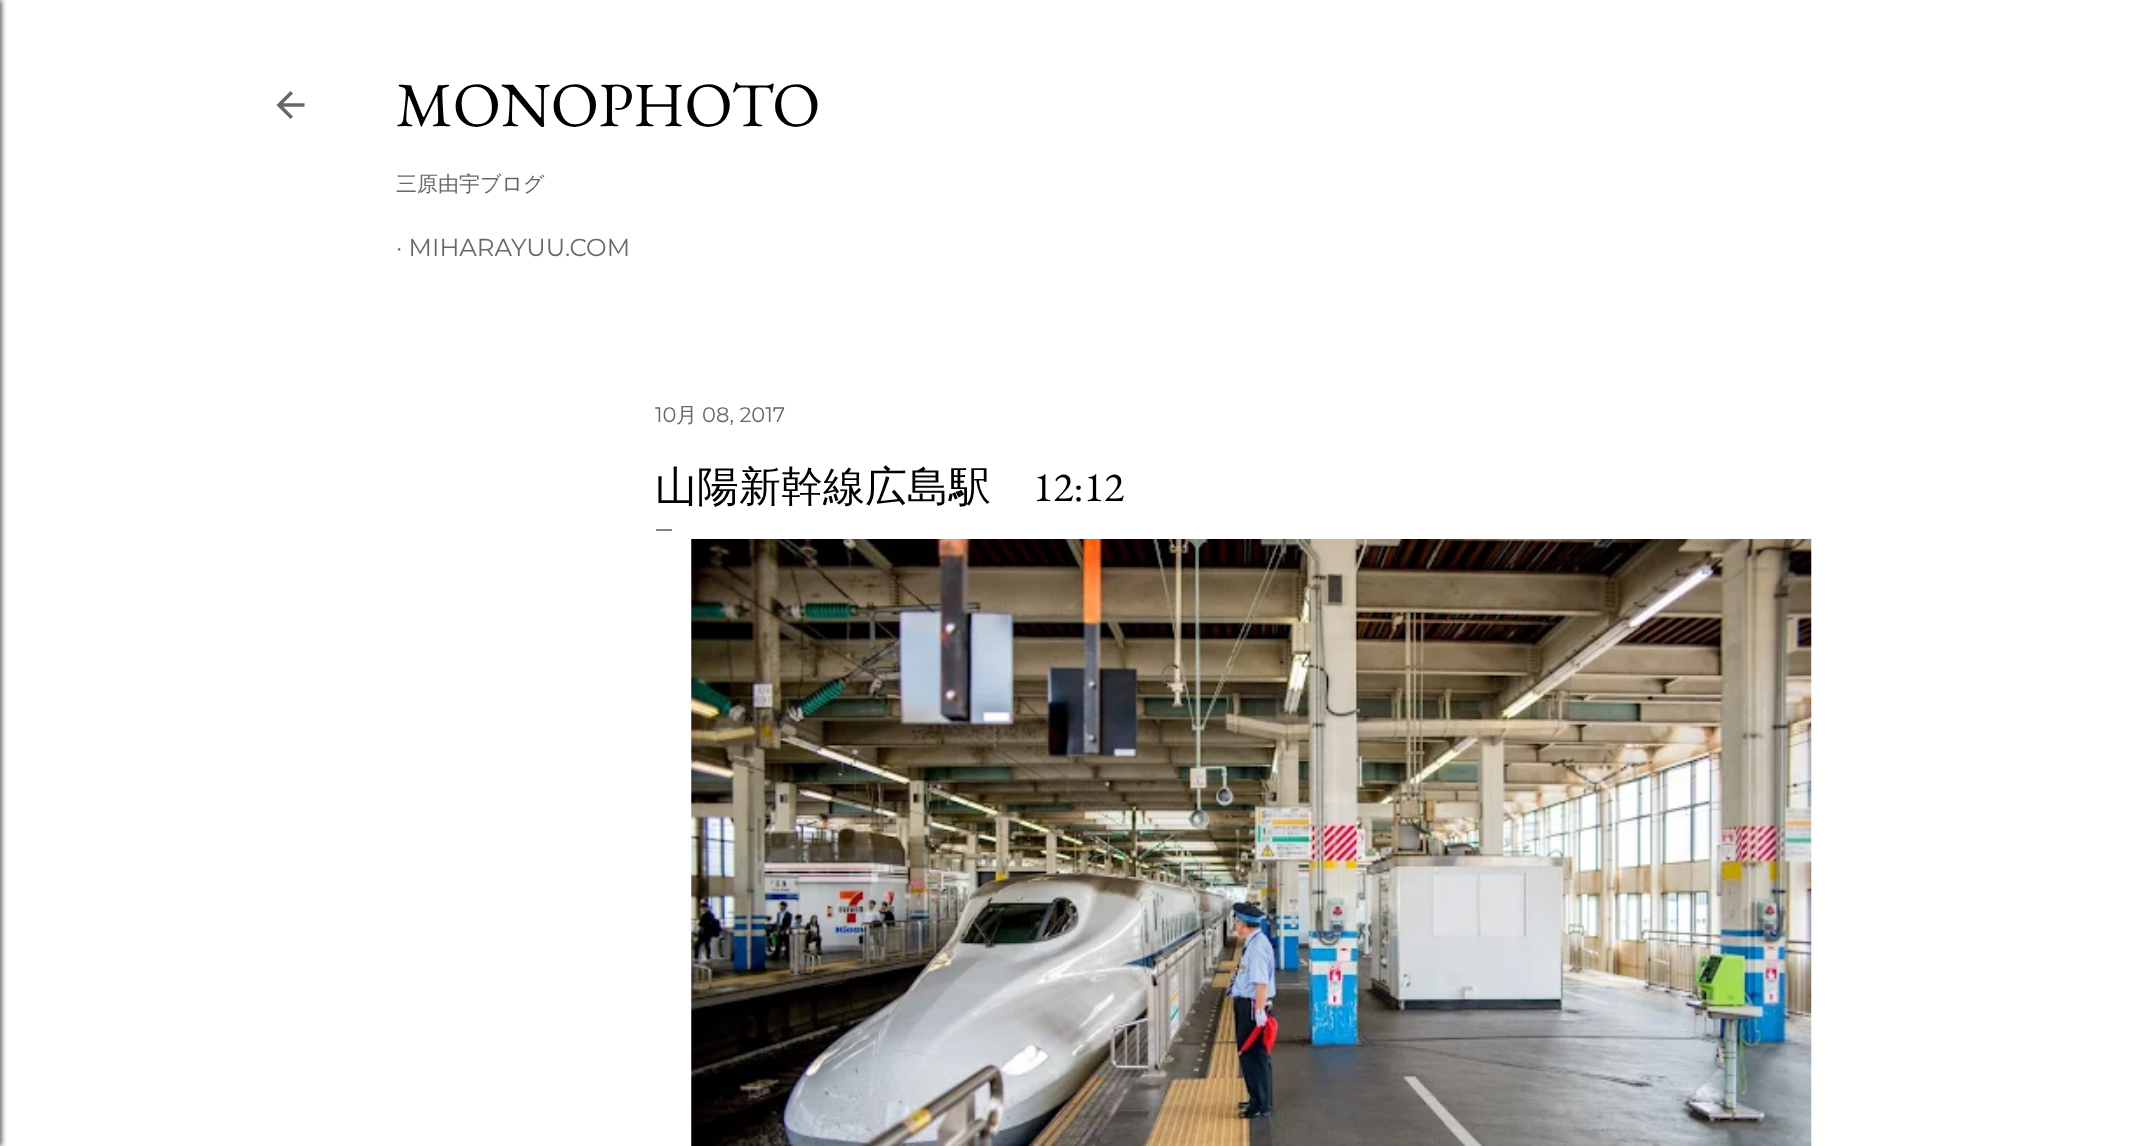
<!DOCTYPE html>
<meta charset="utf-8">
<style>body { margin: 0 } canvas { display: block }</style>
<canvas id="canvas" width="2151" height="1146"></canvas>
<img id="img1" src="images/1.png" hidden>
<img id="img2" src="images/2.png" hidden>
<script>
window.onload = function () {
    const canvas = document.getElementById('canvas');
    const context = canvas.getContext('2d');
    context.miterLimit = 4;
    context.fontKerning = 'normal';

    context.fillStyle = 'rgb(255, 255, 255)';
    context.fillRect(0, 0, 2151, 1146);
    context.fillStyle = 'rgb(103, 103, 103)';
    context.filter = 'blur(2.5px)';
    context.beginPath();
    context.rect(-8, 0, 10, 1146);
    context.fill();
    context.filter = 'none';
    context.drawImage(document.getElementById('img1'), 276, 91, 29, 28);
    context.drawImage(document.getElementById('img2'), 691, 539, 1121, 607);
    context.font = '63px EB Garamond';
    context.fillStyle = 'rgb(0, 0, 0)';
    context.fillText('MONOPHOTO', 396, 126);
    context.font = '500 21px WenQuanYi Zen Hei';
    context.fillStyle = 'rgb(103, 103, 103)';
    context.fillText('三原由宇ブログ', 396, 191);
    context.font = '24.5px Montserrat';
    context.fillText('· MIHARAYUU.COM', 396, 256);
    context.font = '21px Montserrat';
    context.fillText('10', 655, 422);
    context.font = '500 21px WenQuanYi Zen Hei';
    context.fillText('月', 676, 422);
    context.font = '21px Montserrat';
    context.fillText('08, 2017', 702, 422);
    context.font = '500 42px WenQuanYi Zen Hei';
    context.fillStyle = 'rgb(0, 0, 0)';
    context.fillText('山陽新幹線広島駅', 655, 501);
    context.font = '42px EB Garamond';
    context.fillText('12:12', 1033, 501);
    context.font = '19px EB Garamond';
    context.fillText('—', 655, 534);
};
</script>
